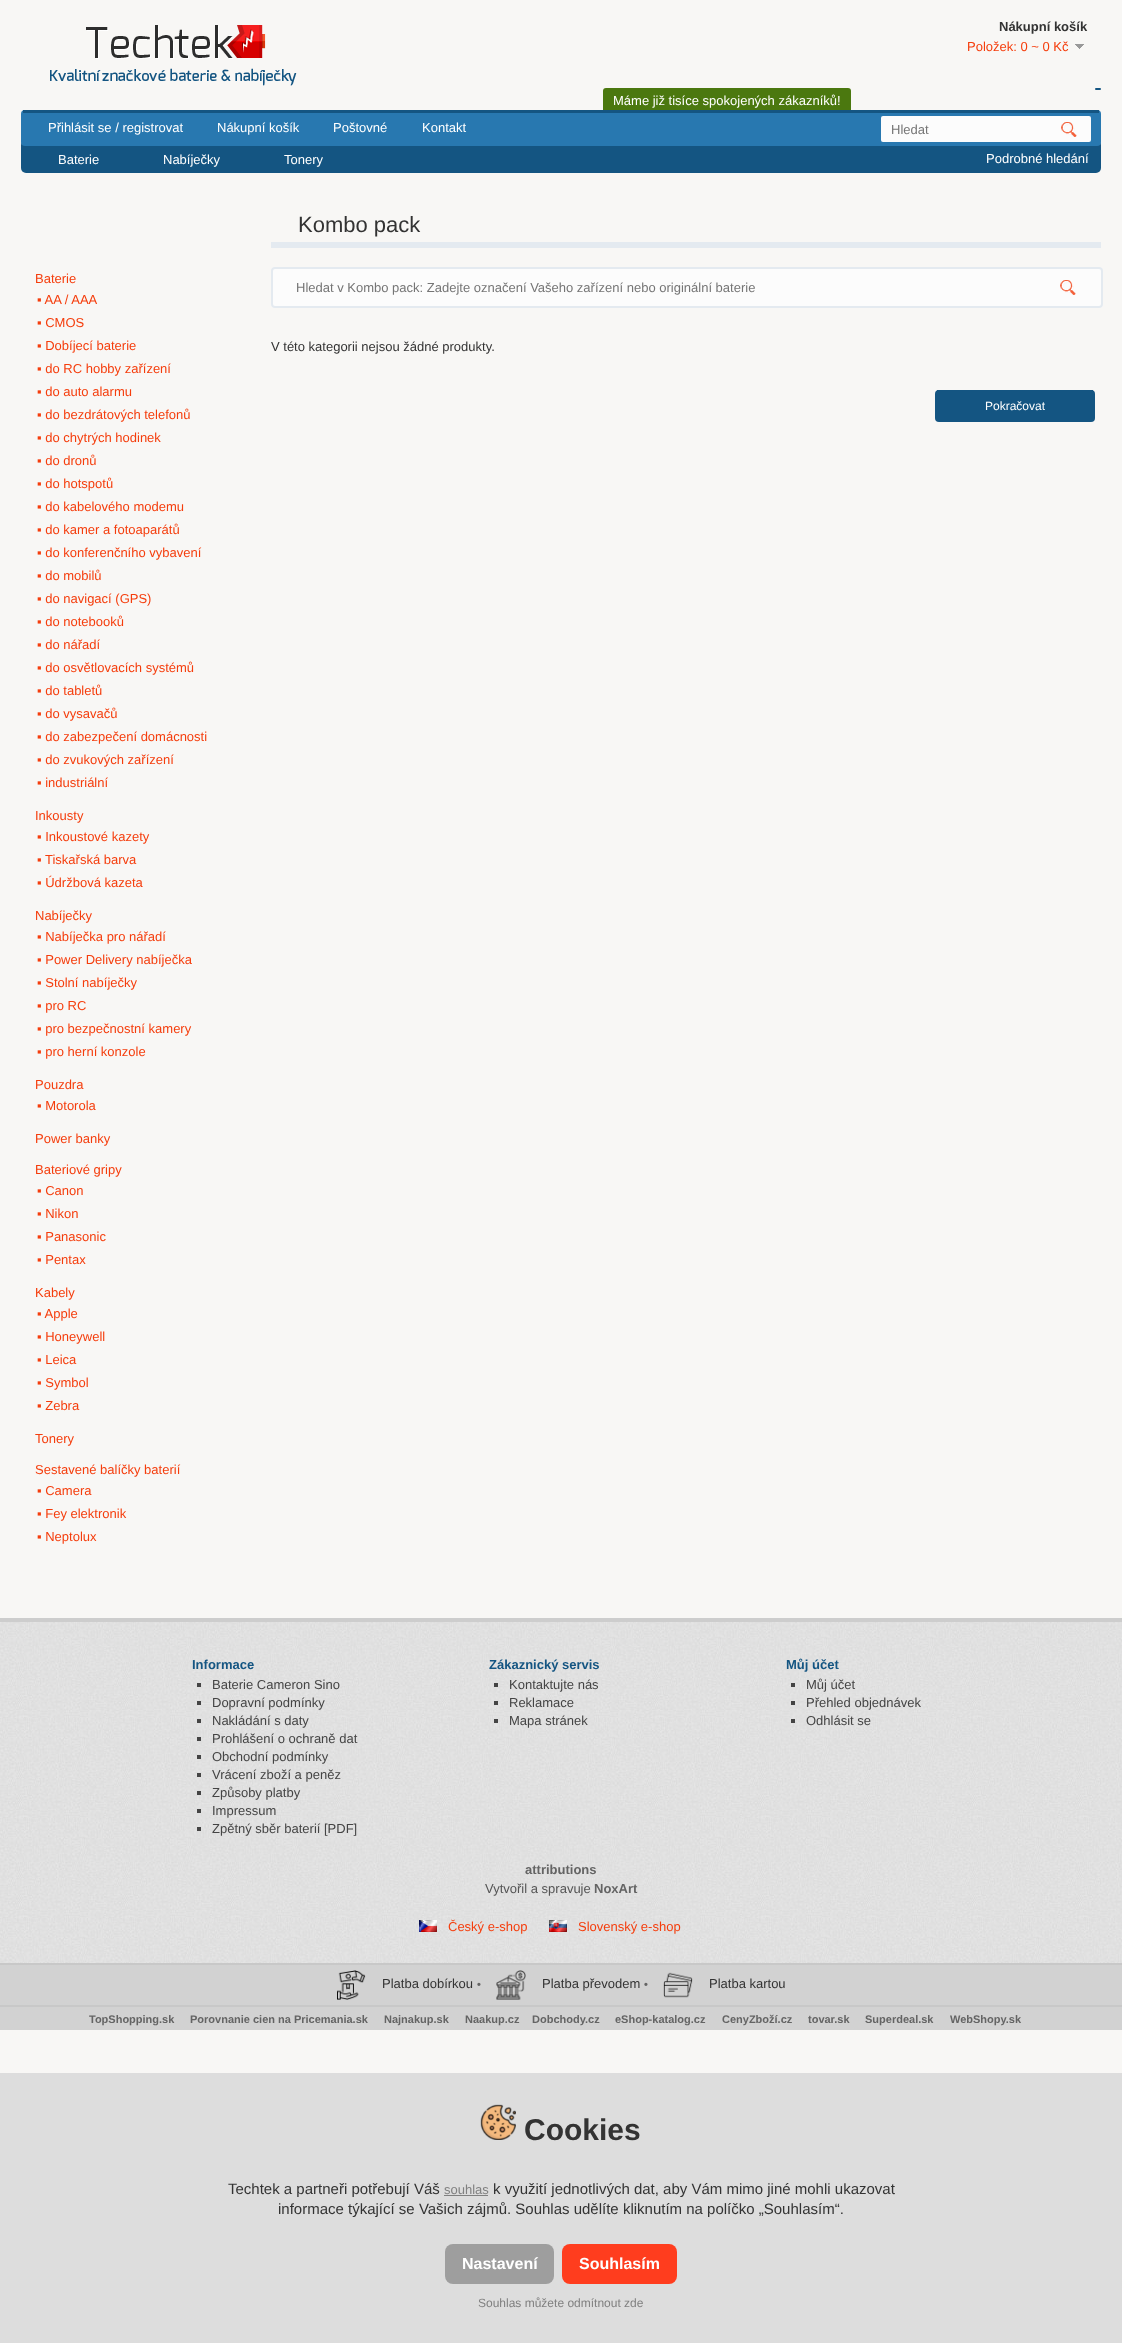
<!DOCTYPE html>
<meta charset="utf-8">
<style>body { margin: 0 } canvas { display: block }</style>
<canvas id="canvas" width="1122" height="2343"></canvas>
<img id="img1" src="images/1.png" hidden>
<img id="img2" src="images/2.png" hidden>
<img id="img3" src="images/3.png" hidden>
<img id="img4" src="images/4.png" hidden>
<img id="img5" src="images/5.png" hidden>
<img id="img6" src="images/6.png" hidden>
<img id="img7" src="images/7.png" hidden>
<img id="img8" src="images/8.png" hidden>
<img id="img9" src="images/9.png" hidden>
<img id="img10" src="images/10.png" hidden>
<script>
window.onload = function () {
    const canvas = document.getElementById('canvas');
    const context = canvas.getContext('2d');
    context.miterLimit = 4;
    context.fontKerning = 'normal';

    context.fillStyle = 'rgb(248, 247, 245)';
    context.fillRect(0, 0, 1122, 2343);
    context.drawImage(document.getElementById('img1'), 50, 25, 247, 61);
    context.drawImage(document.getElementById('img2'), 1075, 44, 9, 5);
    context.fillStyle = 'rgb(20, 85, 130)';
    context.beginPath();
    context.roundRect(1095, 88, 6, 2, 1);
    context.fill();
    context.fillStyle = 'rgb(75, 120, 15)';
    context.beginPath();
    context.roundRect(603, 88, 248, 25, 3);
    context.fill();
    context.fillStyle = 'rgb(20, 85, 130)';
    context.beginPath();
    context.roundRect(21, 140, 1080, 33, 5);
    context.fill();
    context.fillStyle = 'rgb(40, 120, 176)';
    context.beginPath();
    context.roundRect(21, 110, 1080, 36, 4);
    context.fill();
    context.fillStyle = 'rgb(20, 85, 130)';
    context.fillRect(23, 110, 1076, 3);
    context.fillStyle = 'rgb(252, 252, 252)';
    context.beginPath();
    context.roundRect(881, 116, 210, 26, 2);
    context.fill();
    context.drawImage(document.getElementById('img3'), 1061, 122, 16, 15);
    context.fillStyle = 'rgb(228, 234, 240)';
    context.fillRect(271, 242, 830, 6);
    context.fillStyle = 'rgb(252, 252, 252)';
    context.beginPath();
    context.roundRect(271, 267, 832, 41, 4);
    context.fill();
    context.drawImage(document.getElementById('img3'), 1060, 280, 16, 15);
    context.beginPath();
    context.roundRect(272, 268, 830, 39, 3);
    context.strokeStyle = 'rgb(228, 234, 240)';
    context.lineWidth = 2;
    context.stroke();
    context.fillStyle = 'rgb(20, 85, 130)';
    context.beginPath();
    context.roundRect(935, 390, 160, 32, 4);
    context.fill();
    context.fillRect(937, 390, 156, 1);
    context.drawImage(document.getElementById('img4'), 0, 1622, 1122, 341);
    context.fillStyle = 'rgb(205, 205, 205)';
    context.fillRect(0, 1618, 1122, 4);
    context.fillStyle = 'rgb(68, 68, 68)';
    context.fillRect(197, 1683, 4, 4);
    context.fillRect(197, 1701, 4, 4);
    context.fillRect(197, 1719, 4, 4);
    context.fillRect(197, 1737, 4, 4);
    context.fillRect(197, 1755, 4, 4);
    context.fillRect(197, 1773, 4, 4);
    context.fillRect(197, 1791, 4, 4);
    context.fillRect(197, 1809, 4, 4);
    context.fillRect(197, 1827, 4, 4);
    context.fillRect(494, 1683, 4, 4);
    context.fillRect(494, 1701, 4, 4);
    context.fillRect(494, 1719, 4, 4);
    context.fillRect(791, 1683, 4, 4);
    context.fillRect(791, 1701, 4, 4);
    context.fillRect(791, 1719, 4, 4);
    context.drawImage(document.getElementById('img5'), 419, 1920, 18, 12);
    context.drawImage(document.getElementById('img6'), 549, 1920, 18, 12);
    context.fillStyle = 'rgb(210, 210, 210)';
    context.fillRect(0, 1965, 1122, 40);
    context.fillStyle = 'rgb(200, 200, 200)';
    context.fillRect(0, 1963, 1122, 2);
    context.drawImage(document.getElementById('img7'), 337, 1970, 29, 30);
    context.drawImage(document.getElementById('img8'), 496, 1970, 30, 30);
    context.drawImage(document.getElementById('img9'), 663, 1972, 30, 26);
    context.fillStyle = 'rgb(210, 210, 210)';
    context.fillRect(0, 2007, 1122, 23);
    context.fillStyle = 'rgb(200, 200, 200)';
    context.fillRect(0, 2005, 1122, 2);
    context.fillStyle = 'rgb(221, 221, 221)';
    context.fillRect(0, 2073, 1122, 270);
    context.drawImage(document.getElementById('img10'), 480, 2104, 36, 36);
    context.fillStyle = 'rgb(128, 128, 128)';
    context.fillRect(444, 2195, 44, 1);
    context.fillStyle = 'rgb(158, 158, 158)';
    context.beginPath();
    context.roundRect(445, 2244, 109, 40, 8);
    context.fill();
    context.fillStyle = 'rgb(255, 61, 30)';
    context.beginPath();
    context.roundRect(562, 2244, 115, 40, 8);
    context.fill();
    context.font = 'bold 13px Liberation Sans';
    context.fillStyle = 'rgb(51, 51, 51)';
    context.fillText('Nákupní košík', 999, 31);
    context.font = '13px Liberation Sans';
    context.fillStyle = 'rgb(245, 61, 12)';
    context.fillText('Položek: 0 ~ 0 Kč', 967, 51);
    context.fillStyle = 'rgb(255, 255, 255)';
    context.fillText('Máme již tisíce spokojených zákazníků!', 613, 105);
    context.fillText('Přihlásit se / registrovat', 48, 132);
    context.fillText('Nákupní košík', 217, 132);
    context.fillText('Poštovné', 333, 132);
    context.fillText('Kontakt', 422, 132);
    context.fillStyle = 'rgb(117, 117, 117)';
    context.fillText('Hledat', 891, 134);
    context.fillStyle = 'rgb(255, 255, 255)';
    context.fillText('Baterie', 58, 164);
    context.fillText('Nabíječky', 163, 164);
    context.fillText('Tonery', 284, 164);
    context.fillText('Podrobné hledání', 986, 163);
    context.fillStyle = 'rgb(245, 61, 12)';
    context.fillText('Baterie', 35, 283);
    context.fillText('▪ AA / AAA', 37, 304);
    context.fillText('▪ CMOS', 37, 327);
    context.fillText('▪ Dobíjecí baterie', 37, 350);
    context.fillText('▪ do RC hobby zařízení', 37, 373);
    context.fillText('▪ do auto alarmu', 37, 396);
    context.fillText('▪ do bezdrátových telefonů', 37, 419);
    context.fillText('▪ do chytrých hodinek', 37, 442);
    context.fillText('▪ do dronů', 37, 465);
    context.fillText('▪ do hotspotů', 37, 488);
    context.fillText('▪ do kabelového modemu', 37, 511);
    context.fillText('▪ do kamer a fotoaparátů', 37, 534);
    context.fillText('▪ do konferenčního vybavení', 37, 557);
    context.fillText('▪ do mobilů', 37, 580);
    context.fillText('▪ do navigací (GPS)', 37, 603);
    context.fillText('▪ do notebooků', 37, 626);
    context.fillText('▪ do nářadí', 37, 649);
    context.fillText('▪ do osvětlovacích systémů', 37, 672);
    context.fillText('▪ do tabletů', 37, 695);
    context.fillText('▪ do vysavačů', 37, 718);
    context.fillText('▪ do zabezpečení domácnosti', 37, 741);
    context.fillText('▪ do zvukových zařízení', 37, 764);
    context.fillText('▪ industriální', 37, 787);
    context.fillText('Inkousty', 35, 820);
    context.fillText('▪ Inkoustové kazety', 37, 841);
    context.fillText('▪ Tiskařská barva', 37, 864);
    context.fillText('▪ Údržbová kazeta', 37, 887);
    context.fillText('Nabíječky', 35, 920);
    context.fillText('▪ Nabíječka pro nářadí', 37, 941);
    context.fillText('▪ Power Delivery nabíječka', 37, 964);
    context.fillText('▪ Stolní nabíječky', 37, 987);
    context.fillText('▪ pro RC', 37, 1010);
    context.fillText('▪ pro bezpečnostní kamery', 37, 1033);
    context.fillText('▪ pro herní konzole', 37, 1056);
    context.fillText('Pouzdra', 35, 1089);
    context.fillText('▪ Motorola', 37, 1110);
    context.fillText('Power banky', 35, 1143);
    context.fillText('Bateriové gripy', 35, 1174);
    context.fillText('▪ Canon', 37, 1195);
    context.fillText('▪ Nikon', 37, 1218);
    context.fillText('▪ Panasonic', 37, 1241);
    context.fillText('▪ Pentax', 37, 1264);
    context.fillText('Kabely', 35, 1297);
    context.fillText('▪ Apple', 37, 1318);
    context.fillText('▪ Honeywell', 37, 1341);
    context.fillText('▪ Leica', 37, 1364);
    context.fillText('▪ Symbol', 37, 1387);
    context.fillText('▪ Zebra', 37, 1410);
    context.fillText('Tonery', 35, 1443);
    context.fillText('Sestavené balíčky baterií', 35, 1474);
    context.fillText('▪ Camera', 37, 1495);
    context.fillText('▪ Fey elektronik', 37, 1518);
    context.fillText('▪ Neptolux', 37, 1541);
    context.font = '22px Liberation Sans';
    context.fillStyle = 'rgb(51, 51, 51)';
    context.fillText('Kombo pack', 298, 232);
    context.font = '13px Liberation Sans';
    context.fillStyle = 'rgb(117, 117, 117)';
    context.fillText('Hledat v Kombo pack: Zadejte označení Vašeho zařízení nebo originální baterie', 296, 292);
    context.fillStyle = 'rgb(51, 51, 51)';
    context.fillText('V této kategorii nejsou žádné produkty.', 271, 351);
    context.font = '12px Liberation Sans';
    context.fillStyle = 'rgb(255, 255, 255)';
    context.fillText('Pokračovat', 985, 410);
    context.font = 'bold 13px Liberation Sans';
    context.fillStyle = 'rgb(20, 85, 130)';
    context.fillText('Informace', 192, 1669);
    context.font = '13px Liberation Sans';
    context.fillStyle = 'rgb(68, 68, 68)';
    context.fillText('Baterie Cameron Sino', 212, 1689);
    context.fillText('Dopravní podmínky', 212, 1707);
    context.fillText('Nakládání s daty', 212, 1725);
    context.fillText('Prohlášení o ochraně dat', 212, 1743);
    context.fillText('Obchodní podmínky', 212, 1761);
    context.fillText('Vrácení zboží a peněz', 212, 1779);
    context.fillText('Způsoby platby', 212, 1797);
    context.fillText('Impressum', 212, 1815);
    context.fillText('Zpětný sběr baterií [PDF]', 212, 1833);
    context.font = 'bold 13px Liberation Sans';
    context.fillStyle = 'rgb(20, 85, 130)';
    context.fillText('Zákaznický servis', 489, 1669);
    context.font = '13px Liberation Sans';
    context.fillStyle = 'rgb(68, 68, 68)';
    context.fillText('Kontaktujte nás', 509, 1689);
    context.fillText('Reklamace', 509, 1707);
    context.fillText('Mapa stránek', 509, 1725);
    context.font = 'bold 13px Liberation Sans';
    context.fillStyle = 'rgb(20, 85, 130)';
    context.fillText('Můj účet', 786, 1669);
    context.font = '13px Liberation Sans';
    context.fillStyle = 'rgb(68, 68, 68)';
    context.fillText('Můj účet', 806, 1689);
    context.fillText('Přehled objednávek', 806, 1707);
    context.fillText('Odhlásit se', 806, 1725);
    context.font = 'bold 13px Liberation Sans';
    context.fillStyle = 'rgb(100, 100, 100)';
    context.fillText('attributions', 525, 1874);
    context.font = '13px Liberation Sans';
    context.fillStyle = 'rgb(85, 85, 85)';
    context.fillText('Vytvořil a spravuje', 485, 1893);
    context.font = 'bold 13px Liberation Sans';
    context.fillStyle = 'rgb(100, 100, 100)';
    context.fillText('NoxArt', 594, 1893);
    context.font = '13px Liberation Sans';
    context.fillStyle = 'rgb(245, 61, 12)';
    context.fillText('Český e-shop', 448, 1931);
    context.fillText('Slovenský e-shop', 578, 1931);
    context.fillStyle = 'rgb(51, 51, 51)';
    context.fillText('Platba dobírkou', 382, 1988);
    context.font = 'bold 11px Liberation Sans';
    context.fillStyle = 'rgb(100, 100, 100)';
    context.fillText('•', 477, 1988);
    context.font = '13px Liberation Sans';
    context.fillStyle = 'rgb(51, 51, 51)';
    context.fillText('Platba převodem', 542, 1988);
    context.font = 'bold 11px Liberation Sans';
    context.fillStyle = 'rgb(100, 100, 100)';
    context.fillText('•', 644, 1988);
    context.font = '13px Liberation Sans';
    context.fillStyle = 'rgb(51, 51, 51)';
    context.fillText('Platba kartou', 709, 1988);
    context.font = 'bold 11px Liberation Sans';
    context.fillStyle = 'rgb(100, 100, 100)';
    context.fillText('TopShopping.sk', 89, 2023);
    context.fillText('Porovnanie cien na Pricemania.sk', 190, 2023);
    context.fillText('Najnakup.sk', 384, 2023);
    context.fillText('Naakup.cz', 465, 2023);
    context.fillText('Dobchody.cz', 532, 2023);
    context.fillText('eShop-katalog.cz', 615, 2023);
    context.fillText('CenyZboží.cz', 722, 2023);
    context.fillText('tovar.sk', 808, 2023);
    context.fillText('Superdeal.sk', 865, 2023);
    context.fillText('WebShopy.sk', 950, 2023);
    context.font = 'bold 30px Liberation Sans';
    context.fillStyle = 'rgb(51, 51, 51)';
    context.fillText('Cookies', 524, 2140);
    context.font = '15px Liberation Sans';
    context.fillText('Techtek a partneři potřebují Váš', 228, 2194);
    context.font = '13px Liberation Sans';
    context.fillStyle = 'rgb(128, 128, 128)';
    context.fillText('souhlas', 444, 2194);
    context.font = '15px Liberation Sans';
    context.fillStyle = 'rgb(51, 51, 51)';
    context.fillText('k využití jednotlivých dat, aby Vám mimo jiné mohli ukazovat', 493, 2194);
    context.fillText('informace týkající se Vašich zájmů. Souhlas udělíte kliknutím na políčko „Souhlasím“.', 278, 2214);
    context.font = 'bold 16px Liberation Sans';
    context.fillStyle = 'rgb(255, 255, 255)';
    context.fillText('Nastavení', 462, 2269);
    context.fillText('Souhlasím', 579, 2269);
    context.font = '12px Liberation Sans';
    context.fillStyle = 'rgb(128, 128, 128)';
    context.fillText('Souhlas můžete odmítnout zde', 478, 2307);
};
</script>
